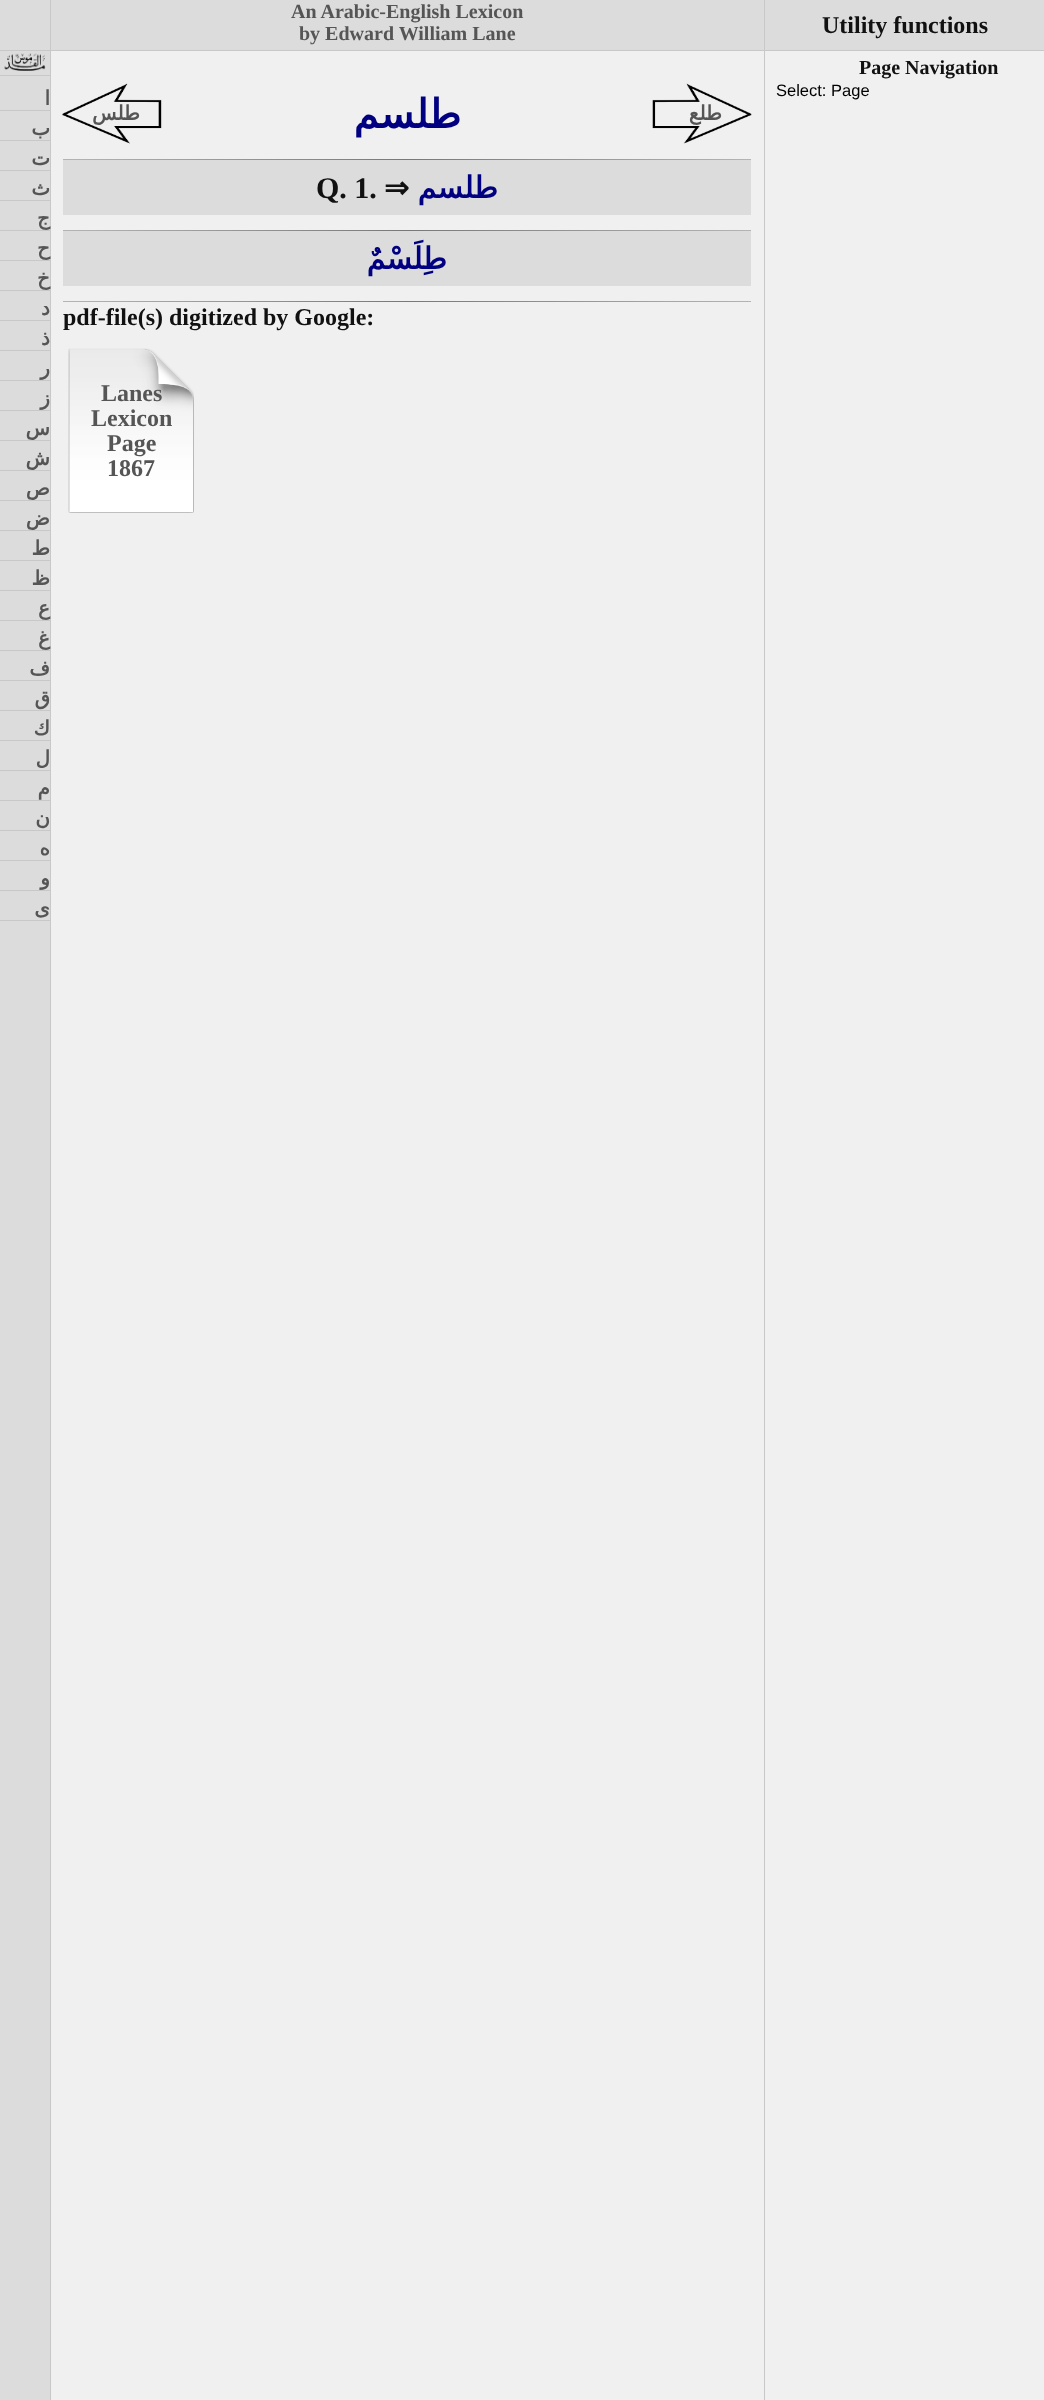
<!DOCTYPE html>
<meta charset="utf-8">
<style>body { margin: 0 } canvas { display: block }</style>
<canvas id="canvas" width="1044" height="2400"></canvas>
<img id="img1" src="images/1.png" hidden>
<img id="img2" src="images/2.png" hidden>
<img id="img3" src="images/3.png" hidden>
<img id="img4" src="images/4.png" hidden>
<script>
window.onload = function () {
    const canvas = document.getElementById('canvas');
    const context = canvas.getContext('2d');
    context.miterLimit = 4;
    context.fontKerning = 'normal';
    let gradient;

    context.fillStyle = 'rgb(240, 240, 240)';
    context.fillRect(0, 0, 1044, 2400);
    context.fillStyle = 'rgb(220, 220, 220)';
    context.fillRect(51, 0, 713, 50);
    context.fillStyle = 'rgb(200, 200, 200)';
    context.fillRect(764, 0, 1, 2400);
    context.fillRect(50, 50, 994, 1);
    context.fillStyle = 'rgb(220, 220, 220)';
    context.fillRect(765, 0, 279, 50);
    context.fillRect(0, 0, 50, 2400);
    context.fillStyle = 'rgb(200, 200, 200)';
    context.fillRect(50, 0, 1, 2400);
    context.fillRect(0, 50, 50, 1);
    context.fillRect(0, 75, 50, 1);
    context.drawImage(document.getElementById('img1'), 4, 53, 42, 18);
    context.fillRect(0, 110, 50, 1);
    context.fillRect(0, 140, 50, 1);
    context.fillRect(0, 170, 50, 1);
    context.fillRect(0, 200, 50, 1);
    context.fillRect(0, 230, 50, 1);
    context.fillRect(0, 260, 50, 1);
    context.fillRect(0, 290, 50, 1);
    context.fillRect(0, 320, 50, 1);
    context.fillRect(0, 350, 50, 1);
    context.fillRect(0, 380, 50, 1);
    context.fillRect(0, 410, 50, 1);
    context.fillRect(0, 440, 50, 1);
    context.fillRect(0, 470, 50, 1);
    context.fillRect(0, 500, 50, 1);
    context.fillRect(0, 530, 50, 1);
    context.fillRect(0, 560, 50, 1);
    context.fillRect(0, 590, 50, 1);
    context.fillRect(0, 620, 50, 1);
    context.fillRect(0, 650, 50, 1);
    context.fillRect(0, 680, 50, 1);
    context.fillRect(0, 710, 50, 1);
    context.fillRect(0, 740, 50, 1);
    context.fillRect(0, 770, 50, 1);
    context.fillRect(0, 800, 50, 1);
    context.fillRect(0, 830, 50, 1);
    context.fillRect(0, 860, 50, 1);
    context.fillRect(0, 890, 50, 1);
    context.fillRect(0, 920, 50, 1);
    context.drawImage(document.getElementById('img2'), 62, 83, 100, 61);
    context.drawImage(document.getElementById('img3'), 652, 83, 100, 61);
    gradient = context.createLinearGradient(63, 159, 751, 159);
    gradient.addColorStop(0, 'rgb(180, 180, 180)');
    gradient.addColorStop(0.5, 'rgb(120, 120, 120)');
    gradient.addColorStop(1, 'rgb(180, 180, 180)');
    context.fillStyle = gradient;
    context.fillRect(63, 159, 688, 1);
    context.fillStyle = 'rgb(220, 220, 220)';
    context.fillRect(63, 160, 688, 55);
    gradient = context.createLinearGradient(63, 231, 751, 231);
    gradient.addColorStop(0, 'rgb(180, 180, 180)');
    gradient.addColorStop(0.5, 'rgb(120, 120, 120)');
    gradient.addColorStop(1, 'rgb(180, 180, 180)');
    context.fillStyle = gradient;
    context.fillRect(63, 230, 688, 1);
    context.fillStyle = 'rgb(220, 220, 220)';
    context.fillRect(63, 231, 688, 55);
    gradient = context.createLinearGradient(63, 302, 751, 302);
    gradient.addColorStop(0, 'rgb(180, 180, 180)');
    gradient.addColorStop(0.5, 'rgb(120, 120, 120)');
    gradient.addColorStop(1, 'rgb(180, 180, 180)');
    context.fillStyle = gradient;
    context.fillRect(63, 301, 688, 1);
    context.drawImage(document.getElementById('img4'), 68, 348, 126, 165);
    context.font = 'bold 20px Liberation Serif';
    context.fillStyle = 'rgb(85, 85, 85)';
    context.fillText('An Arabic-English Lexicon', 291, 18);
    context.fillText('by Edward William Lane', 299, 40);
    context.font = 'bold 24px Liberation Serif';
    context.fillStyle = 'rgb(17, 17, 17)';
    context.fillText('Utility functions', 822, 33);
    context.font = 'bold 20px Liberation Serif';
    context.fillText('Page Navigation', 859, 74);
    context.font = '16.5px Liberation Sans';
    context.fillStyle = 'rgb(0, 0, 0)';
    context.fillText('Select: Page', 776, 96);
    context.direction = 'rtl';
    context.font = 'bold 20px DejaVu Sans';
    context.fillStyle = 'rgb(85, 85, 85)';
    context.fillText('ا', 50, 105);
    context.fillText('ب', 50, 135);
    context.fillText('ت', 50, 165);
    context.fillText('ث', 50, 195);
    context.fillText('ج', 50, 225);
    context.fillText('ح', 50, 255);
    context.fillText('خ', 50, 285);
    context.fillText('د', 50, 315);
    context.fillText('ذ', 50, 345);
    context.fillText('ر', 50, 375);
    context.fillText('ز', 50, 405);
    context.fillText('س', 50, 435);
    context.fillText('ش', 50, 465);
    context.fillText('ص', 50, 495);
    context.fillText('ض', 50, 525);
    context.fillText('ط', 50, 555);
    context.fillText('ظ', 50, 585);
    context.fillText('ع', 50, 615);
    context.fillText('غ', 50, 645);
    context.fillText('ف', 50, 675);
    context.fillText('ق', 50, 705);
    context.fillText('ك', 50, 735);
    context.fillText('ل', 50, 765);
    context.fillText('م', 50, 795);
    context.fillText('ن', 50, 825);
    context.fillText('ه', 50, 855);
    context.fillText('و', 50, 885);
    context.fillText('ى', 50, 915);
    context.fillText('طلس', 140, 120);
    context.font = 'bold 40px DejaVu Sans';
    context.fillStyle = 'rgb(0, 0, 128)';
    context.fillText('طلسم', 461, 128);
    context.font = 'bold 20px DejaVu Sans';
    context.fillStyle = 'rgb(85, 85, 85)';
    context.fillText('طلع', 722, 120);
    context.direction = 'ltr';
    context.font = 'bold 30px Liberation Serif';
    context.fillStyle = 'rgb(17, 17, 17)';
    context.fillText('Q. 1.', 316, 198);
    context.font = 'bold 30px DejaVu Sans';
    context.fillText('⇒', 384, 198);
    context.direction = 'rtl';
    context.fillStyle = 'rgb(0, 0, 128)';
    context.fillText('طلسم', 498, 198);
    context.fillText('طِلَسْمٌ', 447, 269);
    context.direction = 'ltr';
    context.font = 'bold 24px Liberation Serif';
    context.fillStyle = 'rgb(17, 17, 17)';
    context.fillText('pdf-file(s) digitized by Google:', 63, 325);
    context.fillStyle = 'rgb(85, 85, 85)';
    context.fillText('Lanes', 101, 401);
    context.fillText('Lexicon', 91, 426);
    context.fillText('Page', 107, 451);
    context.fillText('1867', 107, 476);
};
</script>
